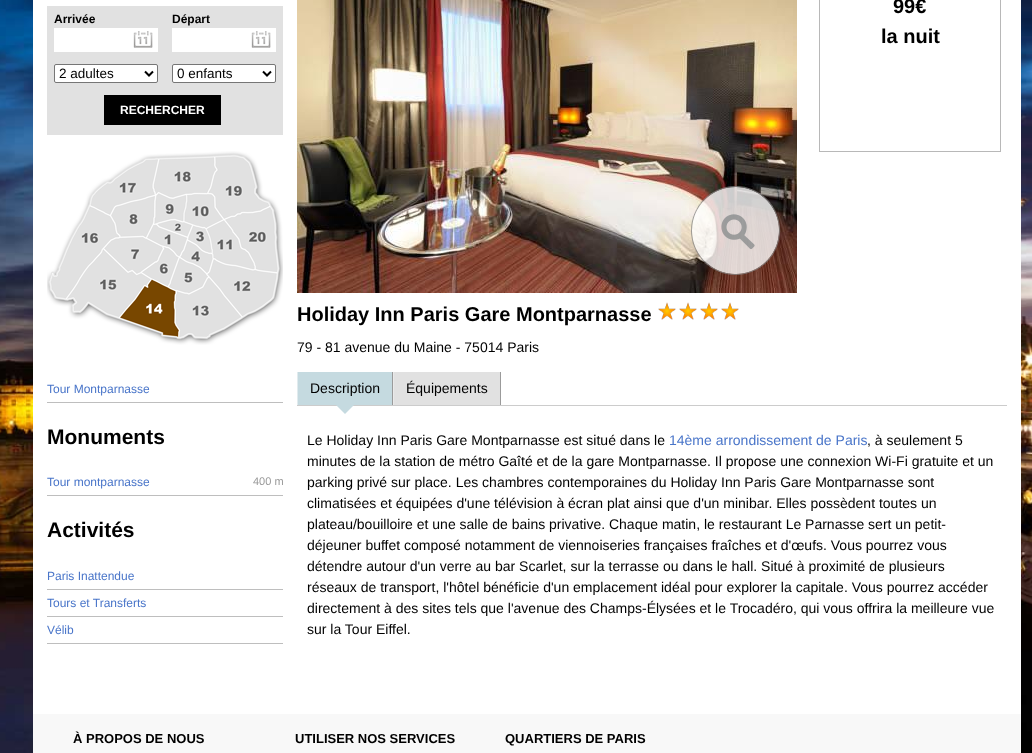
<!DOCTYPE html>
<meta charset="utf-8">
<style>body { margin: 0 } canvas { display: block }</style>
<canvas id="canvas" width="1032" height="753"></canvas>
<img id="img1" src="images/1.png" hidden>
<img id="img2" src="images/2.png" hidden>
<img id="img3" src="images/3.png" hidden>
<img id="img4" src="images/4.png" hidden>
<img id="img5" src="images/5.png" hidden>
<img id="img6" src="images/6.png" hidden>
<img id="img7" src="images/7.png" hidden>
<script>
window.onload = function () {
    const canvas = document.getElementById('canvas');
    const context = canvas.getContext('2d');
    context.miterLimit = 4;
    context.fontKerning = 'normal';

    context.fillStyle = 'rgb(255, 255, 255)';
    context.fillRect(0, 0, 1032, 753);
    context.drawImage(document.getElementById('img1'), 0, 0, 1032, 753);
    context.fillRect(33, 0, 988, 714);
    context.fillStyle = 'rgb(225, 225, 225)';
    context.fillRect(47, 6, 236, 129);
    context.fillStyle = 'rgb(255, 255, 255)';
    context.fillRect(54, 28, 104, 24);
    context.drawImage(document.getElementById('img2'), 133, 31, 20, 17);
    context.fillRect(172, 28, 104, 24);
    context.drawImage(document.getElementById('img2'), 251, 31, 20, 17);
    context.beginPath();
    context.roundRect(54.5, 64.5, 103, 18, 1.5);
    context.fill();
    context.strokeStyle = 'rgb(118, 118, 118)';
    context.stroke();
    context.beginPath();
    context.moveTo(145, 71.5);
    context.lineTo(149, 75.5);
    context.lineTo(153, 71.5);
    context.strokeStyle = 'rgb(0, 0, 0)';
    context.lineWidth = 2;
    context.stroke();
    context.beginPath();
    context.roundRect(172.5, 64.5, 103, 18, 1.5);
    context.fill();
    context.strokeStyle = 'rgb(118, 118, 118)';
    context.lineWidth = 1;
    context.stroke();
    context.beginPath();
    context.moveTo(263, 71.5);
    context.lineTo(267, 75.5);
    context.lineTo(271, 71.5);
    context.strokeStyle = 'rgb(0, 0, 0)';
    context.lineWidth = 2;
    context.stroke();
    context.fillStyle = 'rgb(0, 0, 0)';
    context.fillRect(104, 95, 117, 30);
    context.drawImage(document.getElementById('img3'), 47, 151, 236, 194);
    context.fillStyle = 'rgb(190, 190, 190)';
    context.fillRect(47, 402, 236, 1);
    context.fillRect(47, 495, 236, 1);
    context.fillRect(47, 589, 236, 1);
    context.fillRect(47, 616, 236, 1);
    context.fillRect(47, 643, 236, 1);
    context.drawImage(document.getElementById('img4'), 297, 0, 500, 293);
    context.drawImage(document.getElementById('img5'), 691, 186, 89, 89);
    context.strokeStyle = 'rgb(184, 184, 184)';
    context.lineWidth = 1;
    context.strokeRect(819.5, -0.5, 181, 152);
    context.drawImage(document.getElementById('img6'), 658, 302, 18, 18);
    context.drawImage(document.getElementById('img7'), 679, 302, 18, 18);
    context.drawImage(document.getElementById('img7'), 700, 302, 18, 18);
    context.drawImage(document.getElementById('img7'), 721, 302, 18, 18);
    context.fillStyle = 'rgb(197, 218, 224)';
    context.fillRect(298, 372, 94, 33);
    context.fillStyle = 'rgb(155, 155, 155)';
    context.fillRect(392, 372, 1, 33);
    context.fillStyle = 'rgb(225, 235, 238)';
    context.fillRect(297, 372, 1, 33);
    context.fillStyle = 'rgb(204, 204, 204)';
    context.fillRect(297, 405, 710, 1);
    context.fillStyle = 'rgb(197, 218, 224)';
    context.beginPath();
    context.moveTo(336, 405);
    context.lineTo(354, 405);
    context.lineTo(345, 414);
    context.closePath();
    context.fill();
    context.fillStyle = 'rgb(225, 225, 225)';
    context.fillRect(394, 372, 106, 33);
    context.fillStyle = 'rgb(155, 155, 155)';
    context.fillRect(500, 372, 1, 33);
    context.fillStyle = 'rgb(234, 234, 234)';
    context.fillRect(393, 372, 1, 33);
    context.fillStyle = 'rgb(248, 248, 248)';
    context.fillRect(33, 714, 988, 39);
    context.font = 'bold 12px Liberation Sans';
    context.fillStyle = 'rgb(0, 0, 0)';
    context.fillText('Arrivée', 54, 23);
    context.fillText('Départ', 172, 23);
    context.font = '13.5px Liberation Sans';
    context.fillText('2 adultes', 59, 78);
    context.fillText('0 enfants', 177, 78);
    context.font = 'bold 12px Liberation Sans';
    context.fillStyle = 'rgb(255, 255, 255)';
    context.fillText('RECHERCHER', 120, 114);
    context.font = '12px Liberation Sans';
    context.fillStyle = 'rgb(73, 117, 201)';
    context.fillText('Tour Montparnasse', 47, 393);
    context.font = 'bold 21px Liberation Sans';
    context.fillStyle = 'rgb(0, 0, 0)';
    context.fillText('Monuments', 47, 444);
    context.font = '12px Liberation Sans';
    context.fillStyle = 'rgb(73, 117, 201)';
    context.fillText('Tour montparnasse', 47, 486);
    context.font = '11px Liberation Sans';
    context.fillStyle = 'rgb(153, 153, 153)';
    context.fillText('400 m', 253, 485);
    context.font = 'bold 21px Liberation Sans';
    context.fillStyle = 'rgb(0, 0, 0)';
    context.fillText('Activités', 47, 537);
    context.font = '12px Liberation Sans';
    context.fillStyle = 'rgb(73, 117, 201)';
    context.fillText('Paris Inattendue', 47, 580);
    context.fillText('Tours et Transferts', 47, 607);
    context.fillText('Vélib', 47, 634);
    context.font = 'bold 20px Liberation Sans';
    context.fillStyle = 'rgb(0, 0, 0)';
    context.fillText('99€', 893, 13);
    context.fillText('la nuit', 881, 43);
    context.fillText('Holiday Inn Paris Gare Montparnasse', 297, 321);
    context.font = '14px Liberation Sans';
    context.fillText('79 - 81 avenue du Maine - 75014 Paris', 297, 352);
    context.fillText('Description', 310, 393);
    context.fillText('Équipements', 406, 393);
    context.fillText('Le Holiday Inn Paris Gare Montparnasse est situé dans le', 307, 445);
    context.fillStyle = 'rgb(73, 117, 201)';
    context.fillText('14ème arrondissement de Paris', 669, 445);
    context.fillStyle = 'rgb(0, 0, 0)';
    context.fillText(', à seulement 5', 867, 445);
    context.fillText('minutes de la station de métro Gaîté et de la gare Montparnasse. Il propose une connexion Wi-Fi gratuite et un', 307, 466);
    context.fillText('parking privé sur place. Les chambres contemporaines du Holiday Inn Paris Gare Montparnasse sont', 307, 487);
    context.fillText('climatisées et équipées d\'une télévision à écran plat ainsi que d\'un minibar. Elles possèdent toutes un', 307, 508);
    context.fillText('plateau/bouilloire et une salle de bains privative. Chaque matin, le restaurant Le Parnasse sert un petit-', 307, 529);
    context.fillText('déjeuner buffet composé notamment de viennoiseries françaises fraîches et d\'œufs. Vous pourrez vous', 307, 550);
    context.fillText('détendre autour d\'un verre au bar Scarlet, sur la terrasse ou dans le hall. Situé à proximité de plusieurs', 307, 571);
    context.fillText('réseaux de transport, l\'hôtel bénéficie d\'un emplacement idéal pour explorer la capitale. Vous pourrez accéder', 307, 592);
    context.fillText('directement à des sites tels que l\'avenue des Champs-Élysées et le Trocadéro, qui vous offrira la meilleure vue', 307, 613);
    context.fillText('sur la Tour Eiffel.', 307, 634);
    context.font = 'bold 13px Liberation Sans';
    context.fillText('À PROPOS DE NOUS', 73, 743);
    context.fillText('UTILISER NOS SERVICES', 295, 743);
    context.fillText('QUARTIERS DE PARIS', 505, 743);
};
</script>
